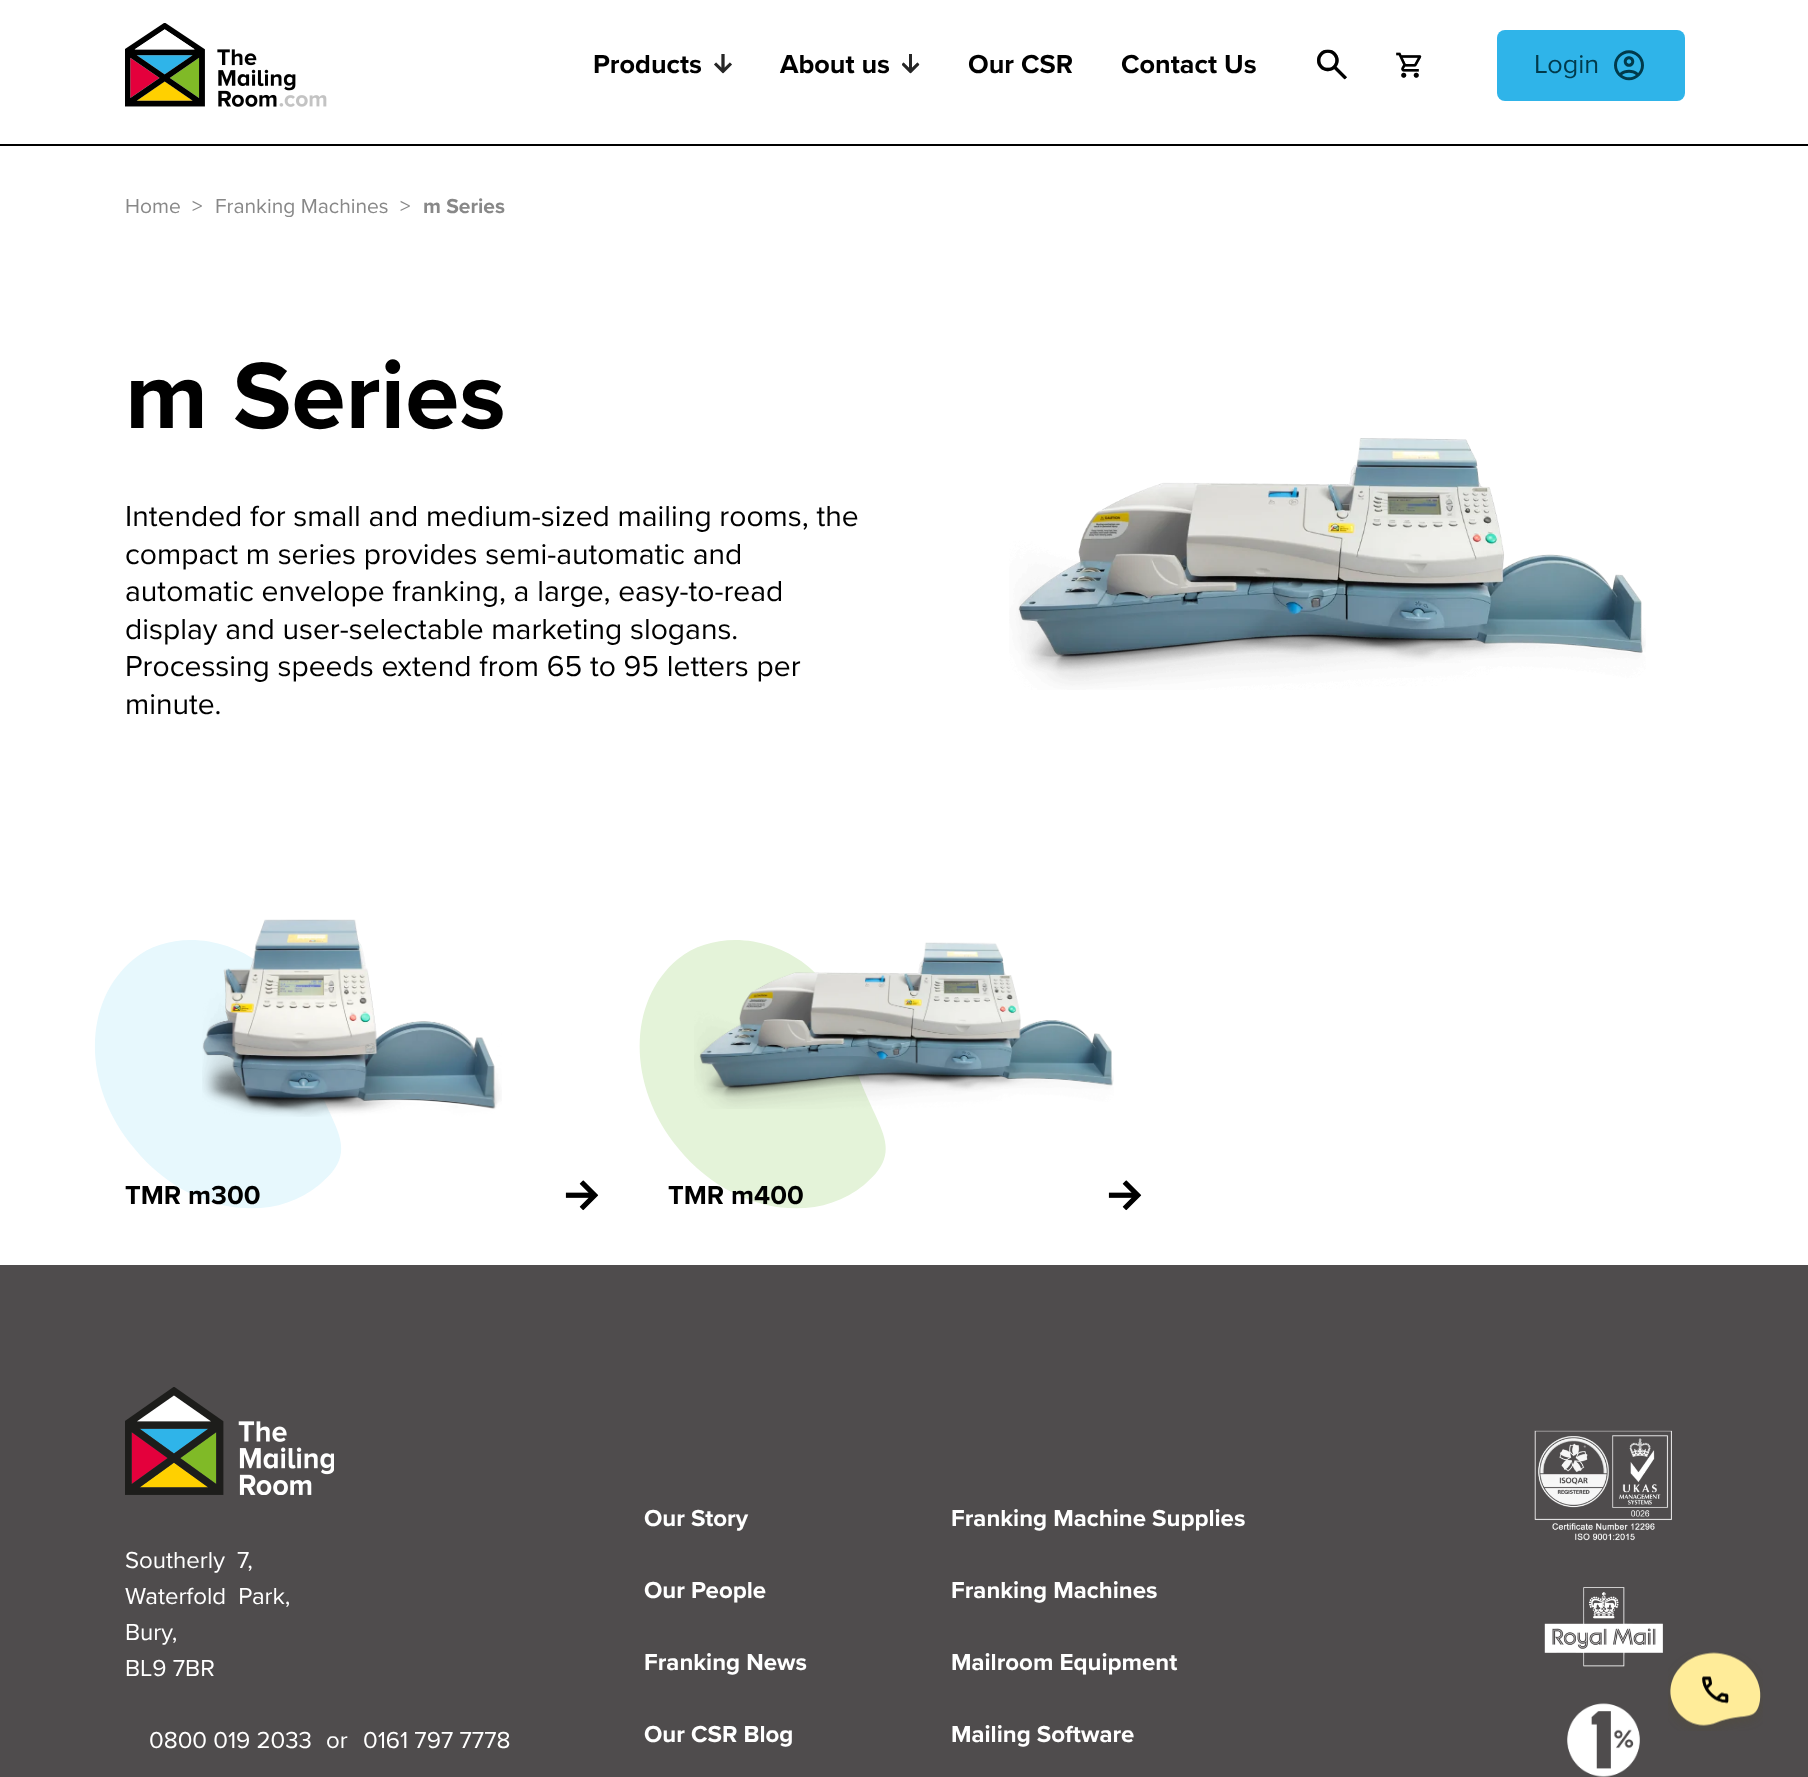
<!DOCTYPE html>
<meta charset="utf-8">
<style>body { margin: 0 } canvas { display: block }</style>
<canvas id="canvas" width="1808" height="1777"></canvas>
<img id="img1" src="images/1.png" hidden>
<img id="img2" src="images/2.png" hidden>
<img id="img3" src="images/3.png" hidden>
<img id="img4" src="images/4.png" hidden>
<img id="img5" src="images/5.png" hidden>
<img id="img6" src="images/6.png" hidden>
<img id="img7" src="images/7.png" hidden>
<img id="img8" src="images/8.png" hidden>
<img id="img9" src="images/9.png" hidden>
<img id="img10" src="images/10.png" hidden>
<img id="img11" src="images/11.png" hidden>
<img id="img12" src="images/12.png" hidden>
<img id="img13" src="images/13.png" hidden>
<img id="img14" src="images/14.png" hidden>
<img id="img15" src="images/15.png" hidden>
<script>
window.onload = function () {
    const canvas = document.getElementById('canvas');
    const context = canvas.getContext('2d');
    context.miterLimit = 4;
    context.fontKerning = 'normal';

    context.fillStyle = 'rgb(255, 255, 255)';
    context.fillRect(0, 0, 1808, 1777);
    context.fillStyle = 'rgb(0, 0, 0)';
    context.fillRect(0, 144, 1808, 2);
    context.drawImage(document.getElementById('img1'), 125, 23, 202, 84);
    context.drawImage(document.getElementById('img2'), 714, 54, 18, 20);
    context.drawImage(document.getElementById('img3'), 902, 54, 18, 20);
    context.drawImage(document.getElementById('img4'), 1317, 49, 30, 31);
    context.drawImage(document.getElementById('img5'), 1396, 52, 26, 26);
    context.fillStyle = 'rgb(47, 180, 233)';
    context.beginPath();
    context.roundRect(1497, 30, 188, 71, 8);
    context.fill();
    context.drawImage(document.getElementById('img6'), 1614, 50, 30, 31);
    context.drawImage(document.getElementById('img7'), 1009, 438, 637, 252);
    context.fillStyle = 'rgb(231, 248, 253)';
    context.beginPath();
    context.moveTo(303, 1034);
    context.bezierCurveTo(287, 946, 185, 917, 134, 959);
    context.bezierCurveTo(82, 1001, 82, 1086, 134, 1148);
    context.bezierCurveTo(185, 1211, 268, 1227, 319, 1185);
    context.bezierCurveTo(371, 1143, 318, 1122, 303, 1034);
    context.closePath();
    context.fill();
    context.drawImage(document.getElementById('img8'), 202, 919, 300, 198);
    context.drawImage(document.getElementById('img9'), 565, 1180, 34, 31);
    context.fillStyle = 'rgb(228, 243, 217)';
    context.beginPath();
    context.moveTo(847, 1034);
    context.bezierCurveTo(831, 946, 730, 917, 678, 959);
    context.bezierCurveTo(627, 1001, 627, 1086, 678, 1148);
    context.bezierCurveTo(729, 1211, 813, 1227, 864, 1185);
    context.bezierCurveTo(915, 1143, 863, 1122, 847, 1034);
    context.closePath();
    context.fill();
    context.drawImage(document.getElementById('img10'), 694, 942, 420, 167);
    context.drawImage(document.getElementById('img9'), 1108, 1180, 34, 31);
    context.fillStyle = 'rgb(79, 76, 77)';
    context.fillRect(0, 1265, 1808, 512);
    context.drawImage(document.getElementById('img11'), 125, 1387, 209, 108);
    context.drawImage(document.getElementById('img12'), 1534, 1430, 138, 111);
    context.drawImage(document.getElementById('img13'), 1544, 1587, 119, 80);
    context.drawImage(document.getElementById('img14'), 1567, 1703, 73, 74);
    context.drawImage(document.getElementById('img15'), 1668, 1652, 95, 79);
    context.font = 'bold 27px Proxima Nova';
    context.fillStyle = 'rgb(0, 0, 0)';
    context.fillText('Products', 593, 73);
    context.fillText('About us', 780, 73);
    context.fillText('Our CSR', 968, 73);
    context.fillText('Contact Us', 1121, 73);
    context.font = '27px Proxima Nova';
    context.fillStyle = 'rgb(1, 58, 75)';
    context.fillText('Login', 1534, 73);
    context.font = '21px Proxima Nova';
    context.fillStyle = 'rgb(136, 136, 136)';
    context.fillText('Home', 125, 213);
    context.fillText('>', 192, 213);
    context.fillText('Franking Machines', 215, 213);
    context.fillText('>', 400, 213);
    context.font = 'bold 21px Proxima Nova';
    context.fillText('m Series', 423, 213);
    context.font = 'bold 97.5px Proxima Nova';
    context.fillStyle = 'rgb(0, 0, 0)';
    context.fillText('m Series', 125, 428);
    context.font = '30px Proxima Nova';
    context.fillText('Intended for small and medium-sized mailing rooms, the', 125, 526);
    context.fillText('compact m series provides semi-automatic and', 125, 564);
    context.fillText('automatic envelope franking, a large, easy-to-read', 125, 601);
    context.fillText('display and user-selectable marketing slogans.', 125, 639);
    context.fillText('Processing speeds extend from 65 to 95 letters per', 125, 676);
    context.fillText('minute.', 125, 714);
    context.font = 'bold 27px Proxima Nova';
    context.fillText('TMR m300', 125, 1204);
    context.fillText('TMR m400', 668, 1204);
    context.wordSpacing = '6px';
    context.font = '24px Proxima Nova';
    context.fillStyle = 'rgb(255, 255, 255)';
    context.fillText('Southerly 7,', 125, 1568);
    context.fillText('Waterfold Park,', 125, 1604);
    context.wordSpacing = '0px';
    context.fillText('Bury,', 125, 1640);
    context.fillText('BL9 7BR', 125, 1676);
    context.fillText('0800 019 2033', 149, 1748);
    context.fillText('or', 326, 1748);
    context.fillText('0161 797 7778', 363, 1748);
    context.font = 'bold 24px Proxima Nova';
    context.fillText('Our Story', 644, 1526);
    context.fillText('Our People', 644, 1598);
    context.fillText('Franking News', 644, 1670);
    context.fillText('Our CSR Blog', 644, 1742);
    context.fillText('Franking Machine Supplies', 951, 1526);
    context.fillText('Franking Machines', 951, 1598);
    context.fillText('Mailroom Equipment', 951, 1670);
    context.fillText('Mailing Software', 951, 1742);
};
</script>
